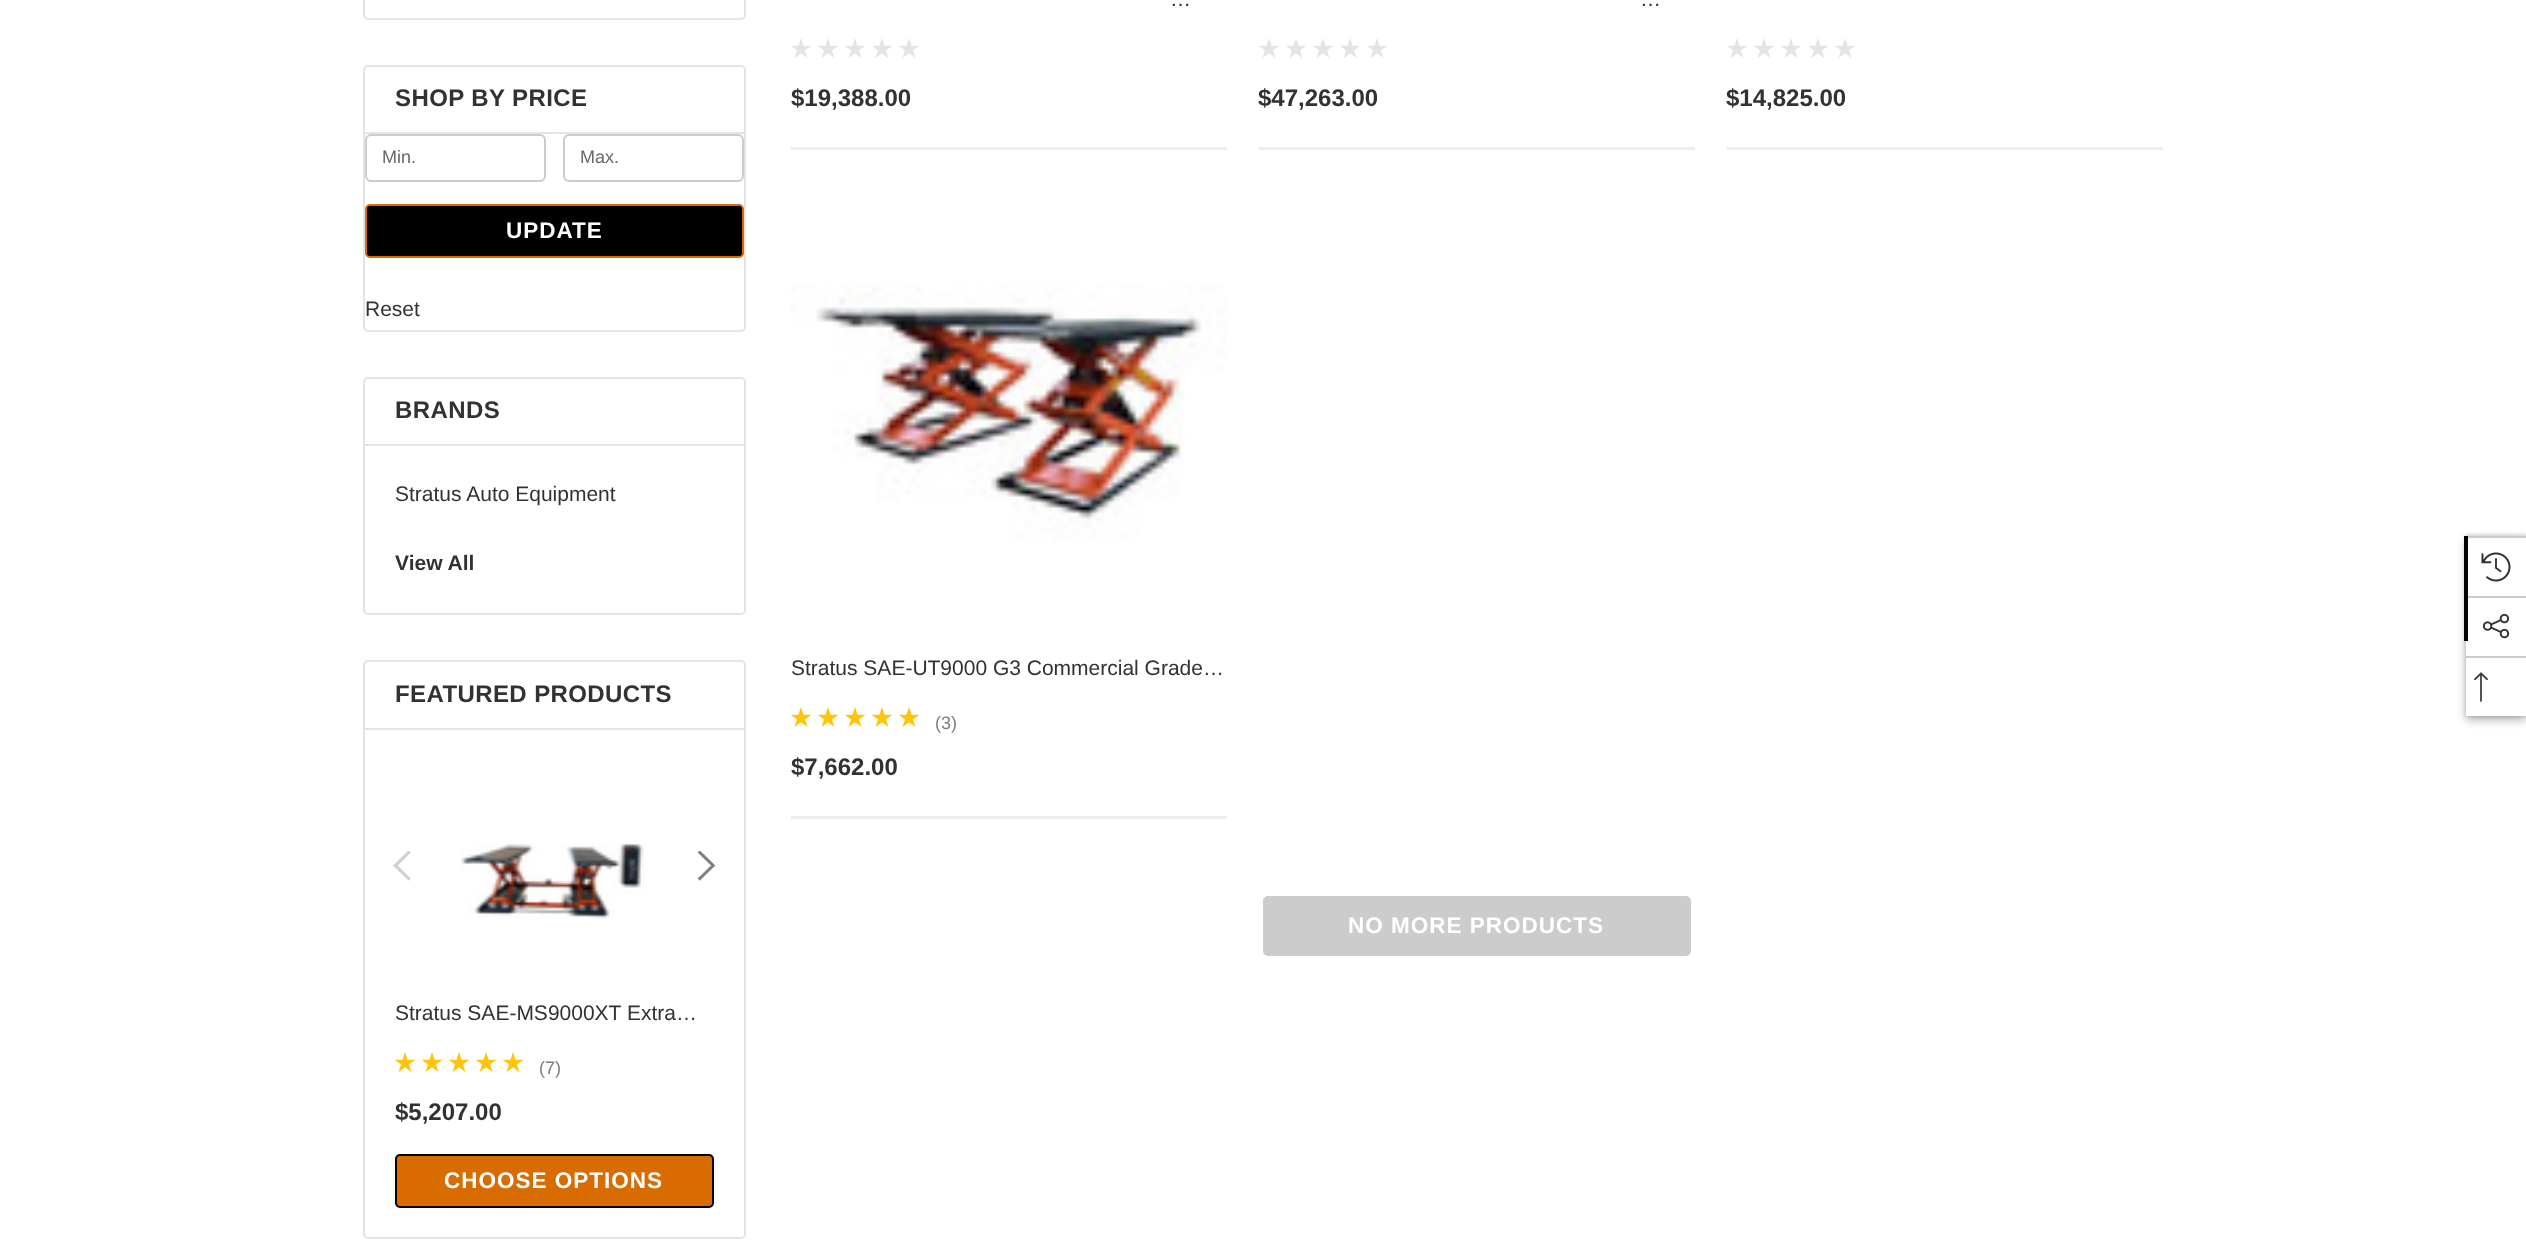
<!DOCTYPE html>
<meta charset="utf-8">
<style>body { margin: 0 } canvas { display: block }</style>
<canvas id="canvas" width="2526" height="1250"></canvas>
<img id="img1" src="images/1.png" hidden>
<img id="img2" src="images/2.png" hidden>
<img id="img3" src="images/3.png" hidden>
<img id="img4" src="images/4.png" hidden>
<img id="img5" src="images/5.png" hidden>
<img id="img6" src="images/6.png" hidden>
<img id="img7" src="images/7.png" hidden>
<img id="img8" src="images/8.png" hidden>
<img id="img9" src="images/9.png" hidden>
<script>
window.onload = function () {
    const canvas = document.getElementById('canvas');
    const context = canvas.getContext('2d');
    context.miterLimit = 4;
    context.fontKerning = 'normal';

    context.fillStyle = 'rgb(255, 255, 255)';
    context.fillRect(0, 0, 2526, 1250);
    context.beginPath();
    context.roundRect(364, -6, 381, 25, 4);
    context.strokeStyle = 'rgb(226, 228, 232)';
    context.lineWidth = 2;
    context.stroke();
    context.beginPath();
    context.roundRect(364, 66, 381, 265, 4);
    context.stroke();
    context.fillStyle = 'rgb(226, 228, 232)';
    context.fillRect(365, 132, 379, 2);
    context.beginPath();
    context.roundRect(366, 135, 179, 46, 5);
    context.strokeStyle = 'rgb(204, 204, 204)';
    context.stroke();
    context.beginPath();
    context.roundRect(564, 135, 179, 46, 5);
    context.stroke();
    context.fillStyle = 'rgb(0, 0, 0)';
    context.beginPath();
    context.roundRect(366, 205, 377, 52, 4);
    context.fill();
    context.strokeStyle = 'rgb(216, 108, 0)';
    context.stroke();
    context.beginPath();
    context.roundRect(364, 378, 381, 236, 4);
    context.strokeStyle = 'rgb(226, 228, 232)';
    context.stroke();
    context.fillStyle = 'rgb(226, 228, 232)';
    context.fillRect(365, 444, 379, 2);
    context.beginPath();
    context.roundRect(364, 661, 381, 577, 4);
    context.stroke();
    context.fillRect(365, 728, 379, 2);
    context.drawImage(document.getElementById('img1'), 393, 851, 18, 30);
    context.drawImage(document.getElementById('img2'), 697, 851, 19, 30);
    context.drawImage(document.getElementById('img3'), 461, 844, 183, 75);
    context.drawImage(document.getElementById('img4'), 395, 1052, 21, 20);
    context.drawImage(document.getElementById('img4'), 422, 1052, 21, 20);
    context.drawImage(document.getElementById('img4'), 449, 1052, 21, 20);
    context.drawImage(document.getElementById('img4'), 476, 1052, 21, 20);
    context.drawImage(document.getElementById('img4'), 503, 1052, 21, 20);
    context.fillStyle = 'rgb(216, 108, 0)';
    context.beginPath();
    context.roundRect(396, 1155, 317, 52, 4);
    context.fill();
    context.strokeStyle = 'rgb(0, 0, 0)';
    context.stroke();
    context.fillStyle = 'rgb(238, 238, 238)';
    context.fillRect(791, 147, 436, 3);
    context.drawImage(document.getElementById('img5'), 791, 38, 20, 20);
    context.drawImage(document.getElementById('img5'), 818, 38, 20, 20);
    context.drawImage(document.getElementById('img5'), 845, 38, 20, 20);
    context.drawImage(document.getElementById('img5'), 872, 38, 20, 20);
    context.drawImage(document.getElementById('img5'), 899, 38, 20, 20);
    context.fillRect(1259, 147, 436, 3);
    context.drawImage(document.getElementById('img5'), 1259, 38, 20, 20);
    context.drawImage(document.getElementById('img5'), 1286, 38, 20, 20);
    context.drawImage(document.getElementById('img5'), 1313, 38, 20, 20);
    context.drawImage(document.getElementById('img5'), 1340, 38, 20, 20);
    context.drawImage(document.getElementById('img5'), 1367, 38, 20, 20);
    context.fillRect(1727, 147, 436, 3);
    context.drawImage(document.getElementById('img5'), 1727, 38, 20, 20);
    context.drawImage(document.getElementById('img5'), 1754, 38, 20, 20);
    context.drawImage(document.getElementById('img5'), 1781, 38, 20, 20);
    context.drawImage(document.getElementById('img5'), 1808, 38, 20, 20);
    context.drawImage(document.getElementById('img5'), 1835, 38, 20, 20);
    context.fillRect(791, 816, 436, 3);
    context.drawImage(document.getElementById('img6'), 791, 284, 436, 259);
    context.drawImage(document.getElementById('img4'), 791, 707, 21, 20);
    context.drawImage(document.getElementById('img4'), 818, 707, 21, 20);
    context.drawImage(document.getElementById('img4'), 845, 707, 21, 20);
    context.drawImage(document.getElementById('img4'), 872, 707, 21, 20);
    context.drawImage(document.getElementById('img4'), 899, 707, 21, 20);
    context.fillStyle = 'rgb(204, 204, 204)';
    context.beginPath();
    context.roundRect(1264, 897, 426, 58, 4);
    context.fill();
    context.strokeStyle = 'rgb(204, 204, 204)';
    context.stroke();
    context.fillStyle = 'rgba(0, 0, 0, 0.3)';
    context.filter = 'blur(5px)';
    context.beginPath();
    context.rect(2466, 540, 60, 180);
    context.fill();
    context.filter = 'none';
    context.fillStyle = 'rgba(0, 0, 0, 0.1)';
    context.filter = 'blur(1.5px)';
    context.beginPath();
    context.rect(2465, 534, 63, 183);
    context.fill();
    context.filter = 'none';
    context.fillStyle = 'rgb(255, 255, 255)';
    context.fillRect(2466, 538, 60, 178);
    context.fillStyle = 'rgb(204, 204, 204)';
    context.fillRect(2466, 536, 60, 2);
    context.fillRect(2466, 596, 60, 2);
    context.fillStyle = 'rgb(0, 0, 0)';
    context.fillRect(2464, 536, 4, 105);
    context.drawImage(document.getElementById('img7'), 2481, 552, 30, 30);
    context.drawImage(document.getElementById('img8'), 2482, 613, 28, 26);
    context.fillStyle = 'rgb(204, 204, 204)';
    context.fillRect(2466, 656, 60, 2);
    context.drawImage(document.getElementById('img9'), 2474, 672, 14, 30);
    context.letterSpacing = '0.4px';
    context.font = 'bold 24px Arimo';
    context.fillStyle = 'rgb(50, 50, 50)';
    context.fillText('SHOP BY PRICE', 395, 106);
    context.letterSpacing = '0px';
    context.font = '18px Arimo';
    context.fillStyle = 'rgb(102, 102, 102)';
    context.fillText('Min.', 382, 163);
    context.fillText('Max.', 580, 163);
    context.letterSpacing = '1px';
    context.font = 'bold 22.5px Arimo';
    context.fillStyle = 'rgb(255, 255, 255)';
    context.fillText('UPDATE', 506, 238);
    context.letterSpacing = '0px';
    context.font = '21px Arimo';
    context.fillStyle = 'rgb(50, 50, 50)';
    context.fillText('Reset', 365, 316);
    context.letterSpacing = '0.4px';
    context.font = 'bold 24px Arimo';
    context.fillText('BRANDS', 395, 418);
    context.letterSpacing = '0px';
    context.font = '21px Arimo';
    context.fillText('Stratus Auto Equipment', 395, 501);
    context.font = 'bold 21px Arimo';
    context.fillText('View All', 395, 570);
    context.letterSpacing = '0.4px';
    context.font = 'bold 24px Arimo';
    context.fillText('FEATURED PRODUCTS', 395, 702);
    context.letterSpacing = '0px';
    context.font = '21px Arimo';
    context.fillText('Stratus SAE-MS9000XT Extra…', 395, 1020);
    context.font = '18px Arimo';
    context.fillStyle = 'rgb(126, 126, 126)';
    context.fillText('(7)', 539, 1074);
    context.font = 'bold 24px Arimo';
    context.fillStyle = 'rgb(50, 50, 50)';
    context.fillText('$5,207.00', 395, 1120);
    context.letterSpacing = '1px';
    context.font = 'bold 22.5px Arimo';
    context.fillStyle = 'rgb(255, 255, 255)';
    context.fillText('CHOOSE OPTIONS', 444, 1188);
    context.letterSpacing = '0px';
    context.font = '21px Arimo';
    context.fillStyle = 'rgb(50, 50, 50)';
    context.fillText('…', 1170, 6);
    context.font = 'bold 24px Arimo';
    context.fillText('$19,388.00', 791, 106);
    context.font = '21px Arimo';
    context.fillText('…', 1640, 6);
    context.font = 'bold 24px Arimo';
    context.fillText('$47,263.00', 1258, 106);
    context.fillText('$14,825.00', 1726, 106);
    context.font = '21px Arimo';
    context.fillText('Stratus SAE-UT9000 G3 Commercial Grade…', 791, 675);
    context.font = '18px Arimo';
    context.fillStyle = 'rgb(126, 126, 126)';
    context.fillText('(3)', 935, 729);
    context.font = 'bold 24px Arimo';
    context.fillStyle = 'rgb(50, 50, 50)';
    context.fillText('$7,662.00', 791, 775);
    context.letterSpacing = '1px';
    context.font = 'bold 22.5px Arimo';
    context.fillStyle = 'rgb(255, 255, 255)';
    context.fillText('NO MORE PRODUCTS', 1348, 933);
};
</script>
